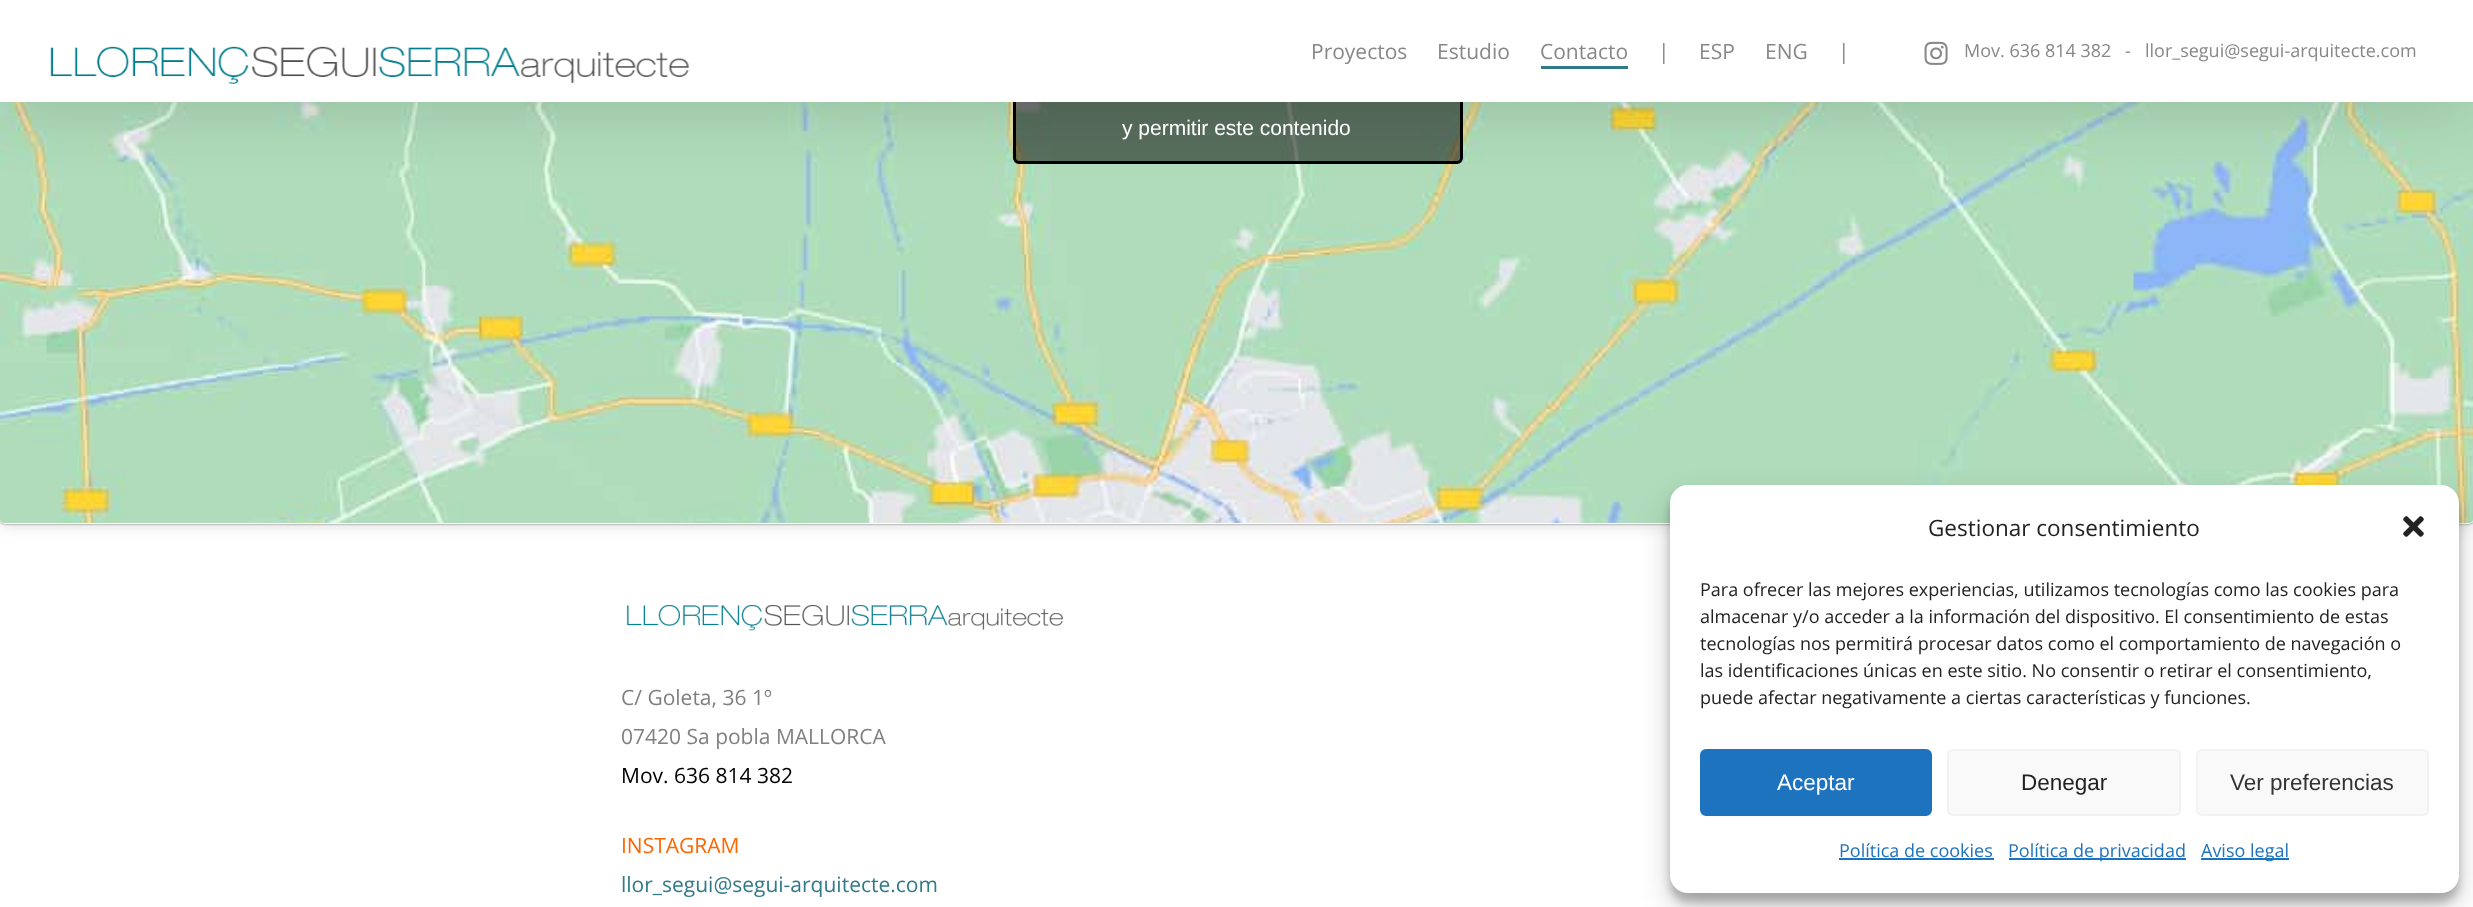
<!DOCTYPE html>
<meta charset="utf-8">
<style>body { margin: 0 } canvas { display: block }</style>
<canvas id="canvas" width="2473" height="907"></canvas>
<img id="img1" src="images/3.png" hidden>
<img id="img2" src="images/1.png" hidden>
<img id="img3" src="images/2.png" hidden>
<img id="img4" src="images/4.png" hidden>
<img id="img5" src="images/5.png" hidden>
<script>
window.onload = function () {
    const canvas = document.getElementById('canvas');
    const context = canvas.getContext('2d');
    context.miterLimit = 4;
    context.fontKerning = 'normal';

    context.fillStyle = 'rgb(255, 255, 255)';
    context.fillRect(0, 0, 2473, 907);
    context.fillStyle = 'rgba(0, 0, 0, 0.15)';
    context.filter = 'blur(7.5px)';
    context.beginPath();
    context.roundRect(0, -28, 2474, 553, 5);
    context.fill();
    context.filter = 'none';
    context.fillStyle = 'rgba(0, 0, 0, 0.5)';
    context.filter = 'blur(1px)';
    context.beginPath();
    context.roundRect(0, -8, 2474, 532, 5);
    context.fill();
    context.filter = 'none';
    context.fillStyle = 'rgb(255, 255, 255)';
    context.beginPath();
    context.roundRect(0, -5, 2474, 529, 5);
    context.fill();
    context.drawImage(document.getElementById('img1'), 0, 102, 2473, 421);
    context.fillStyle = 'rgba(0, 0, 0, 0.5)';
    context.beginPath();
    context.roundRect(1014.5, 60.5, 447, 102, 4.5);
    context.fill();
    context.strokeStyle = 'rgb(0, 0, 0)';
    context.lineWidth = 3;
    context.stroke();
    context.fillStyle = 'rgba(0, 0, 0, 0.15)';
    context.filter = 'blur(34px)';
    context.beginPath();
    context.rect(0, 5, 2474, 102);
    context.fill();
    context.filter = 'none';
    context.fillStyle = 'rgb(255, 255, 255)';
    context.fillRect(0, 0, 2473, 102);
    context.drawImage(document.getElementById('img2'), 50, 46, 640, 38);
    context.fillStyle = 'rgb(49, 122, 137)';
    context.fillRect(1541, 66, 87, 3);
    context.drawImage(document.getElementById('img3'), 1924, 41, 24, 24);
    context.drawImage(document.getElementById('img4'), 626, 605, 437, 26);
    context.fillStyle = 'rgba(0, 0, 0, 0.23)';
    context.filter = 'blur(4.5px)';
    context.beginPath();
    context.roundRect(1670, 494, 789, 408, 18);
    context.fill();
    context.filter = 'none';
    context.fillStyle = 'rgba(0, 0, 0, 0.19)';
    context.filter = 'blur(15px)';
    context.beginPath();
    context.roundRect(1670, 500, 789, 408, 18);
    context.fill();
    context.filter = 'none';
    context.fillStyle = 'rgb(255, 255, 255)';
    context.beginPath();
    context.roundRect(1670, 485, 789, 408, 18);
    context.fill();
    context.drawImage(document.getElementById('img5'), 2403, 516, 21, 21);
    context.fillStyle = 'rgb(30, 115, 190)';
    context.beginPath();
    context.roundRect(1701, 750, 230, 65, 5);
    context.fill();
    context.strokeStyle = 'rgb(30, 115, 190)';
    context.lineWidth = 2;
    context.stroke();
    context.fillStyle = 'rgb(249, 249, 249)';
    context.beginPath();
    context.roundRect(1948, 750, 232, 65, 5);
    context.fill();
    context.strokeStyle = 'rgb(242, 242, 242)';
    context.stroke();
    context.beginPath();
    context.roundRect(2197, 750, 231, 65, 5);
    context.fill();
    context.stroke();
    context.fillStyle = 'rgb(30, 115, 190)';
    context.fillRect(1839, 858, 155, 2);
    context.fillRect(2009, 858, 177, 2);
    context.fillRect(2201, 858, 88, 2);
    context.font = '21px Open Sans';
    context.fillStyle = 'rgb(136, 136, 136)';
    context.fillText('Proyectos', 1311, 59);
    context.fillText('Estudio', 1437, 59);
    context.fillText('Contacto', 1540, 59);
    context.fillText('|', 1658, 59);
    context.fillText('ESP', 1699, 59);
    context.fillText('ENG', 1765, 59);
    context.fillText('|', 1838, 59);
    context.font = '18px Open Sans';
    context.fillText('Mov. 636 814 382', 1964, 57);
    context.fillText('-', 2125, 57);
    context.fillText('llor_segui@segui-arquitecte.com', 2145, 57);
    context.font = '21px Liberation Sans';
    context.fillStyle = 'rgb(255, 255, 255)';
    context.fillText('y permitir este contenido', 1122, 135);
    context.font = '21px Open Sans';
    context.fillStyle = 'rgb(128, 128, 128)';
    context.fillText('C/ Goleta, 36 1º', 621, 705);
    context.fillText('07420 Sa pobla MALLORCA', 621, 744);
    context.fillStyle = 'rgb(0, 0, 0)';
    context.fillText('Mov. 636 814 382', 621, 783);
    context.fillStyle = 'rgb(255, 102, 0)';
    context.fillText('INSTAGRAM', 621, 853);
    context.fillStyle = 'rgb(49, 122, 137)';
    context.fillText('llor_segui@segui-arquitecte.com', 621, 892);
    context.font = '22.5px Open Sans';
    context.fillStyle = 'rgb(34, 34, 34)';
    context.fillText('Gestionar consentimiento', 1928, 536);
    context.font = '18px Open Sans';
    context.fillText('Para ofrecer las mejores experiencias, utilizamos tecnologías como las cookies para', 1700, 596);
    context.fillText('almacenar y/o acceder a la información del dispositivo. El consentimiento de estas', 1700, 623);
    context.fillText('tecnologías nos permitirá procesar datos como el comportamiento de navegación o', 1700, 650);
    context.fillText('las identificaciones únicas en este sitio. No consentir o retirar el consentimiento,', 1700, 677);
    context.fillText('puede afectar negativamente a ciertas características y funciones.', 1700, 704);
    context.font = '22.5px Liberation Sans';
    context.fillStyle = 'rgb(255, 255, 255)';
    context.fillText('Aceptar', 1777, 790);
    context.fillStyle = 'rgb(34, 34, 34)';
    context.fillText('Denegar', 2021, 790);
    context.fillStyle = 'rgb(51, 51, 51)';
    context.fillText('Ver preferencias', 2230, 790);
    context.font = '18px Open Sans';
    context.fillStyle = 'rgb(30, 115, 190)';
    context.fillText('Política de cookies', 1839, 857);
    context.fillText('Política de privacidad', 2008, 857);
    context.fillText('Aviso legal', 2201, 857);
};
</script>
